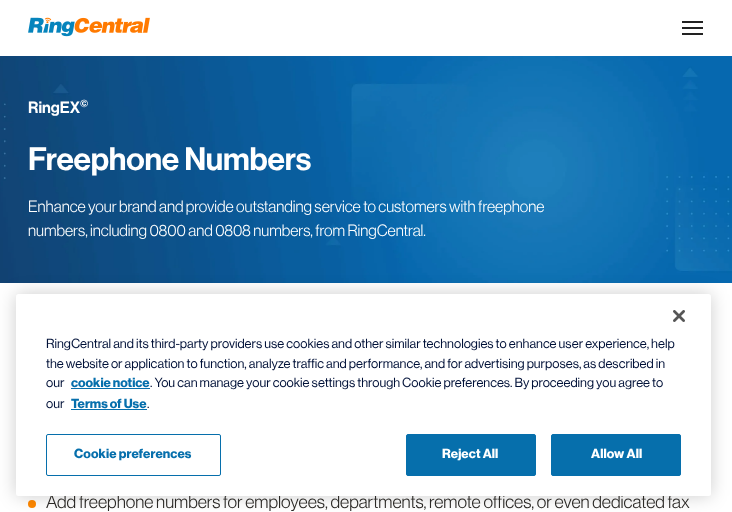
<!DOCTYPE html>
<meta charset="utf-8">
<style>body { margin: 0 } canvas { display: block }</style>
<canvas id="canvas" width="732" height="512"></canvas>
<img id="img1" src="images/1.png" hidden>
<img id="img2" src="images/2.png" hidden>
<img id="img3" src="images/3.png" hidden>
<script>
window.onload = function () {
    const canvas = document.getElementById('canvas');
    const context = canvas.getContext('2d');
    context.miterLimit = 4;
    context.fontKerning = 'normal';

    context.fillStyle = 'rgb(255, 255, 255)';
    context.fillRect(0, 0, 732, 512);
    context.drawImage(document.getElementById('img1'), 28, 17, 122, 20);
    context.fillStyle = 'rgb(34, 34, 34)';
    context.fillRect(682, 21, 21, 2);
    context.fillRect(682, 27, 21, 2);
    context.fillRect(682, 33, 21, 2);
    context.drawImage(document.getElementById('img2'), 0, 56, 732, 227);
    context.fillStyle = 'rgb(255, 136, 1)';
    context.beginPath();
    context.arc(32, 504, 4, 0, 2 * Math.PI);
    context.fill();
    context.fillStyle = 'rgba(0, 0, 0, 0.2)';
    context.filter = 'blur(9px)';
    context.beginPath();
    context.roundRect(16, 294, 695, 202, 2.5);
    context.fill();
    context.filter = 'none';
    context.font = '600 16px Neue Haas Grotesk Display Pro';
    context.fillStyle = 'rgb(255, 255, 255)';
    context.fillText('RingEX', 28, 113);
    context.font = '600 10px Neue Haas Grotesk Display Pro';
    context.fillText('©', 80, 107);
    context.letterSpacing = '-0.2px';
    context.font = '600 32px Neue Haas Grotesk Display Pro';
    context.fillText('Freephone Numbers', 28, 170);
    context.letterSpacing = '0px';
    context.font = '300 16px Neue Haas Grotesk Display Pro';
    context.fillText('Enhance your brand and provide outstanding service to customers with freephone', 28, 212);
    context.fillText('numbers, including 0800 and 0808 numbers, from RingCentral.', 28, 236);
    context.font = '300 18px Neue Haas Grotesk Display Pro';
    context.fillStyle = 'rgb(43, 41, 38)';
    context.fillText('Add freephone numbers for employees, departments, remote offices, or even dedicated fax', 46, 508);
    context.fillStyle = 'rgb(255, 255, 255)';
    context.beginPath();
    context.roundRect(16, 294, 695, 202, 2.5);
    context.fill();
    context.drawImage(document.getElementById('img3'), 673, 310, 12, 12);
    context.font = '13px Neue Haas Grotesk Display Pro';
    context.fillStyle = 'rgb(0, 17, 56)';
    context.fillText('RingCentral and its third-party providers use cookies and other similar technologies to enhance user experience, help', 46, 348);
    context.fillText('the website or application to function, analyze traffic and performance, and for advertising purposes, as described in', 46, 368);
    context.fillText('our', 46, 387);
    context.font = 'bold 13px Neue Haas Grotesk Display Pro';
    context.fillStyle = 'rgb(6, 111, 172)';
    context.fillText('cookie notice', 71, 387);
    context.fillRect(71, 388, 79, 1);
    context.font = '13px Neue Haas Grotesk Display Pro';
    context.fillStyle = 'rgb(0, 17, 56)';
    context.fillText('. You can manage your cookie settings through Cookie preferences. By proceeding you agree to', 150, 387);
    context.fillText('our', 46, 408);
    context.font = 'bold 13px Neue Haas Grotesk Display Pro';
    context.fillStyle = 'rgb(6, 111, 172)';
    context.fillText('Terms of Use', 71, 408);
    context.fillRect(71, 409, 76, 1);
    context.font = '13px Neue Haas Grotesk Display Pro';
    context.fillStyle = 'rgb(0, 17, 56)';
    context.fillText('.', 147, 408);
    context.beginPath();
    context.roundRect(46.5, 434.5, 174, 41, 1.5);
    context.strokeStyle = 'rgb(6, 111, 172)';
    context.stroke();
    context.letterSpacing = '0.1px';
    context.font = 'bold 13px Neue Haas Grotesk Display Pro';
    context.fillStyle = 'rgb(6, 111, 172)';
    context.fillText('Cookie preferences', 74, 458);
    context.beginPath();
    context.roundRect(406.5, 434.5, 129, 41, 1.5);
    context.fill();
    context.stroke();
    context.fillStyle = 'rgb(255, 255, 255)';
    context.fillText('Reject All', 442, 458);
    context.fillStyle = 'rgb(6, 111, 172)';
    context.beginPath();
    context.roundRect(551.5, 434.5, 129, 41, 1.5);
    context.fill();
    context.stroke();
    context.fillStyle = 'rgb(255, 255, 255)';
    context.fillText('Allow All', 591, 458);
};
</script>
